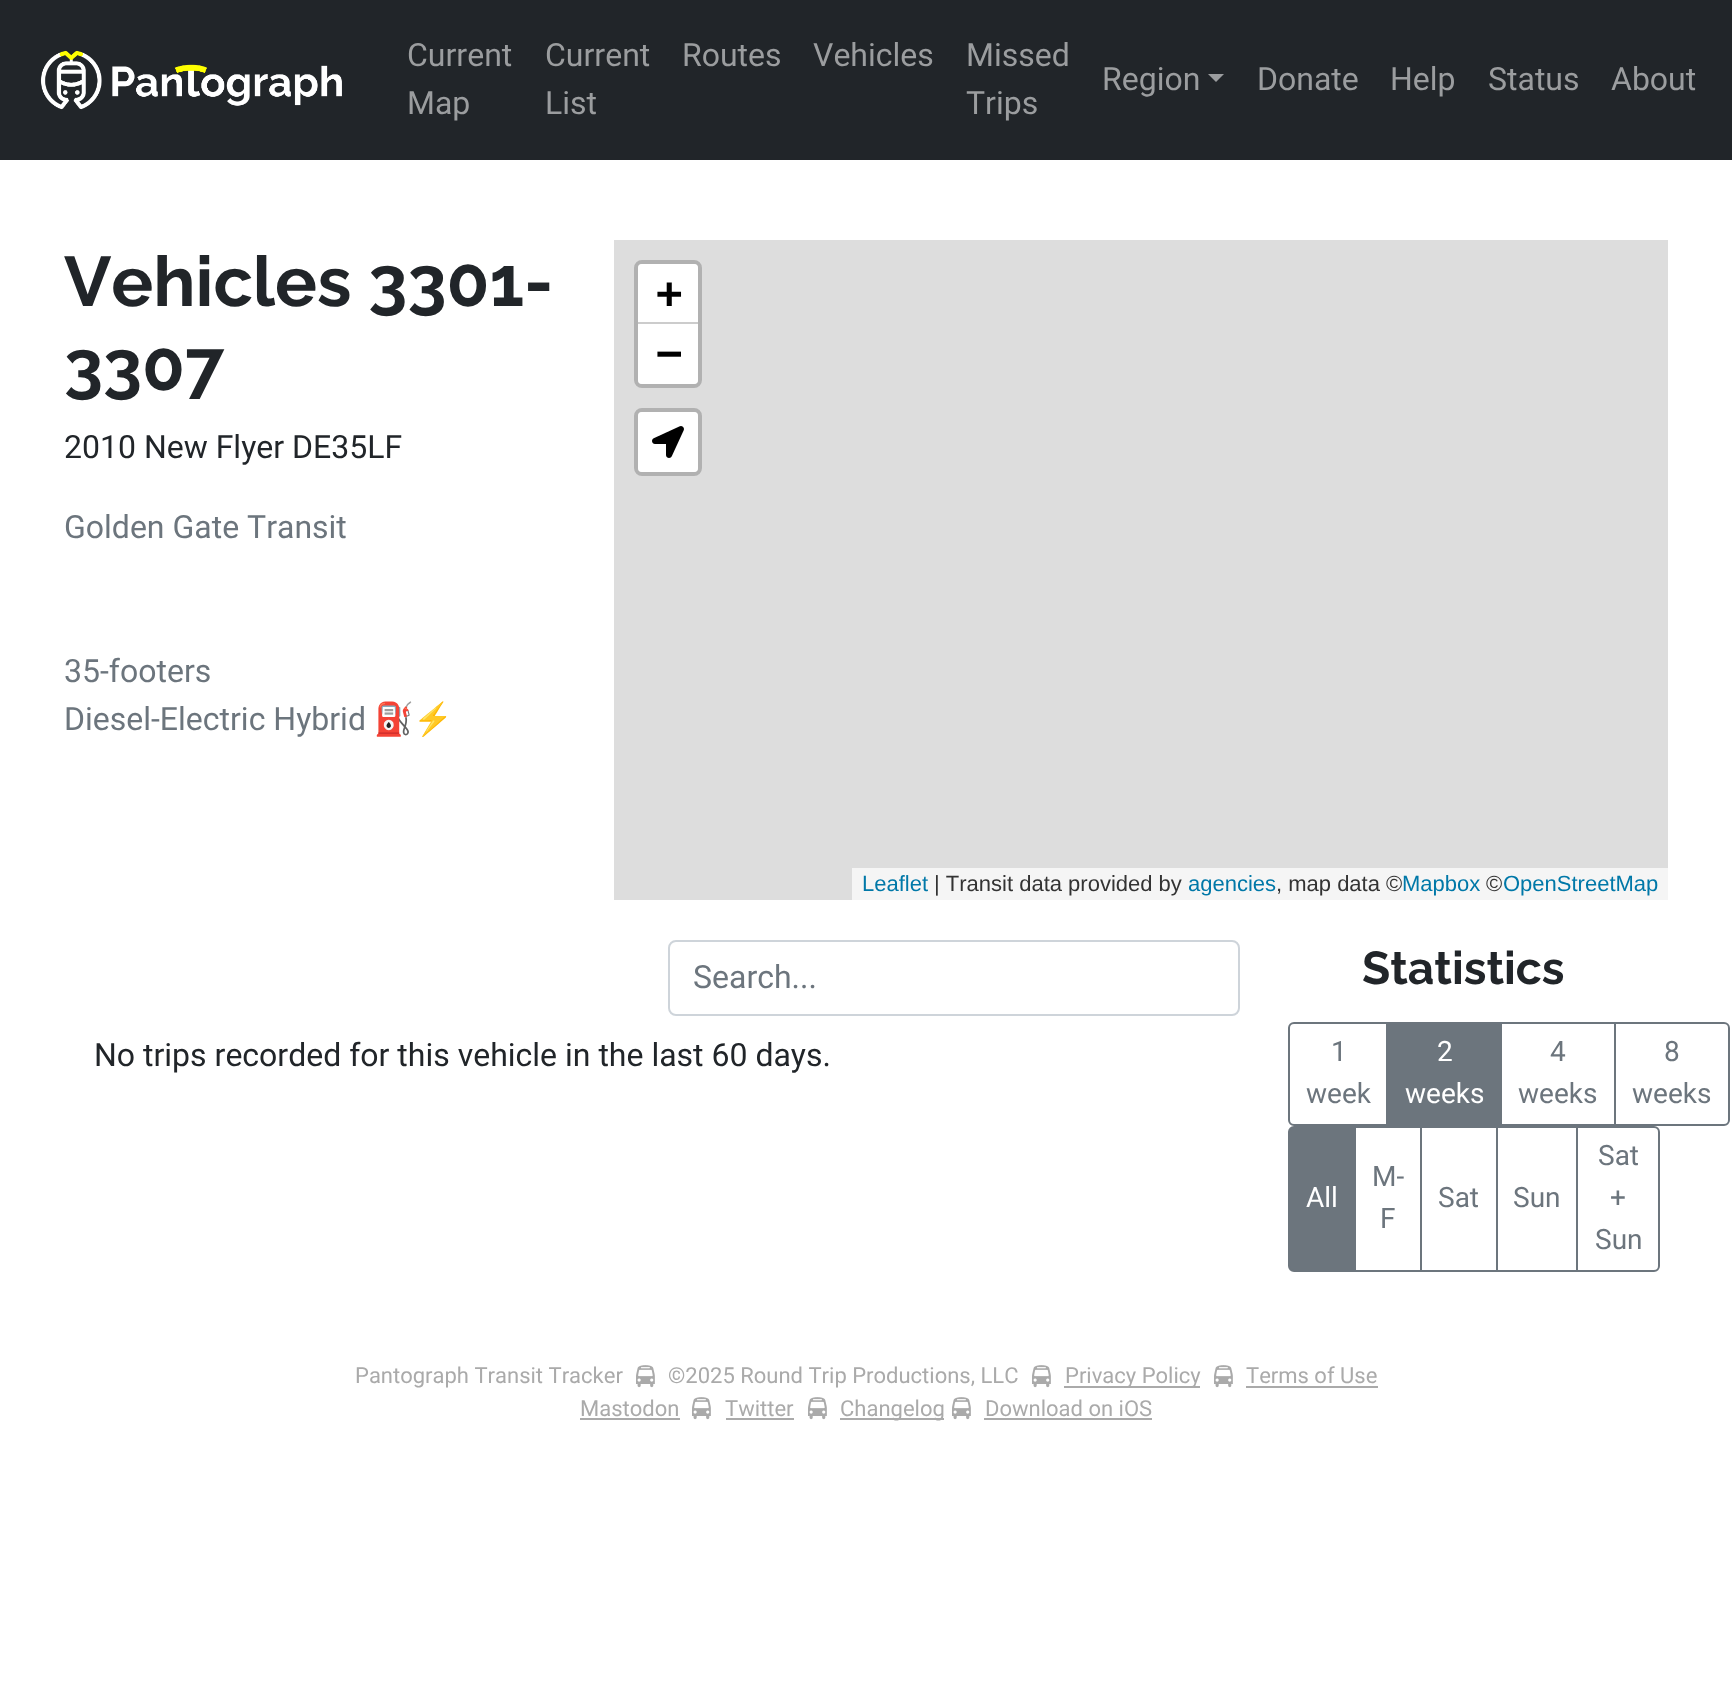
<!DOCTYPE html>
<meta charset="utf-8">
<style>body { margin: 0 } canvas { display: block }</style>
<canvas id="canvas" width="1732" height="1706"></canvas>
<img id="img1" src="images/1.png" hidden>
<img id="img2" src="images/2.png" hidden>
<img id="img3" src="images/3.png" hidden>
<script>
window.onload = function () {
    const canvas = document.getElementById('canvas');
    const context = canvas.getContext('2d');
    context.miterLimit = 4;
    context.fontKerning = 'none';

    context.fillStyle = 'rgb(255, 255, 255)';
    context.fillRect(0, 0, 1732, 1706);
    context.fillStyle = 'rgb(33, 37, 41)';
    context.fillRect(0, 0, 1732, 160);
    context.drawImage(document.getElementById('img1'), 40, 50, 302, 60);
    context.fillStyle = 'rgb(155, 157, 159)';
    context.beginPath();
    context.moveTo(1208, 74);
    context.lineTo(1224, 74);
    context.lineTo(1216, 82);
    context.closePath();
    context.fill();
    context.fillStyle = 'rgb(221, 221, 221)';
    context.fillRect(614, 240, 1054, 660);
    context.beginPath();
    context.roundRect(636, 262, 64, 124, 6);
    context.strokeStyle = 'rgb(177, 177, 177)';
    context.lineWidth = 4;
    context.stroke();
    context.fillStyle = 'rgb(255, 255, 255)';
    context.beginPath();
    context.roundRect(638, 264, 60, 60, [4, 4, 0, 0]);
    context.fill();
    context.fillStyle = 'rgb(204, 204, 204)';
    context.fillRect(638, 322, 60, 2);
    context.fillStyle = 'rgb(255, 255, 255)';
    context.beginPath();
    context.roundRect(638, 324, 60, 60, [0, 0, 4, 4]);
    context.fill();
    context.beginPath();
    context.roundRect(636, 410, 64, 64, 6);
    context.stroke();
    context.beginPath();
    context.roundRect(638, 412, 60, 60, 4);
    context.fill();
    context.drawImage(document.getElementById('img2'), 652, 426, 32, 32);
    context.fillStyle = 'rgb(245, 245, 245)';
    context.fillRect(852, 868, 816, 32);
    context.beginPath();
    context.roundRect(669, 941, 570, 74, 7);
    context.strokeStyle = 'rgb(206, 212, 218)';
    context.lineWidth = 2;
    context.stroke();
    context.beginPath();
    context.roundRect(1289, 1023, 98, 102, [5, 0, 0, 5]);
    context.strokeStyle = 'rgb(108, 117, 125)';
    context.stroke();
    context.fillStyle = 'rgb(108, 117, 125)';
    context.fillRect(1388, 1022, 112, 104);
    context.strokeRect(1501, 1023, 114, 102);
    context.beginPath();
    context.roundRect(1615, 1023, 114, 102, [0, 5, 5, 0]);
    context.stroke();
    context.beginPath();
    context.roundRect(1289, 1127, 66, 144, [5, 0, 0, 5]);
    context.fill();
    context.stroke();
    context.strokeRect(1355, 1127, 66, 144);
    context.strokeRect(1421, 1127, 76, 144);
    context.strokeRect(1497, 1127, 80, 144);
    context.beginPath();
    context.roundRect(1577, 1127, 82, 144, [0, 5, 5, 0]);
    context.stroke();
    context.drawImage(document.getElementById('img3'), 636, 1365, 19, 23);
    context.drawImage(document.getElementById('img3'), 1032, 1365, 19, 23);
    context.fillStyle = 'rgb(170, 170, 170)';
    context.fillRect(1064, 1386, 136, 2);
    context.drawImage(document.getElementById('img3'), 1214, 1365, 19, 23);
    context.fillRect(1246, 1386, 132, 2);
    context.fillRect(580, 1418, 100, 2);
    context.drawImage(document.getElementById('img3'), 692, 1397, 19, 23);
    context.fillRect(726, 1418, 68, 2);
    context.drawImage(document.getElementById('img3'), 808, 1397, 19, 23);
    context.fillRect(840, 1418, 104, 2);
    context.drawImage(document.getElementById('img3'), 952, 1397, 19, 23);
    context.fillRect(984, 1418, 168, 2);
    context.font = '32px Roboto';
    context.fillStyle = 'rgb(155, 157, 159)';
    context.fillText('Current', 407, 66);
    context.fillText('Map', 407, 114);
    context.fillText('Current', 545, 66);
    context.fillText('List', 545, 114);
    context.fillText('Routes', 682, 66);
    context.fillText('Vehicles', 813, 66);
    context.fillText('Missed', 966, 66);
    context.fillText('Trips', 966, 114);
    context.fillText('Region', 1102, 90);
    context.fillText('Donate', 1257, 90);
    context.fillText('Help', 1390, 90);
    context.fillText('Status', 1488, 90);
    context.fillText('About', 1611, 90);
    context.font = '100 70px Raleway';
    context.fillStyle = 'rgb(33, 37, 41)';
    context.fillText('Vehicles 3301-', 64, 306);
    context.fillText('3307', 64, 390);
    context.font = '32px Roboto';
    context.fillText('2010 New Flyer DE35LF', 64, 458);
    context.fillStyle = 'rgb(108, 117, 125)';
    context.fillText('Golden Gate Transit', 64, 538);
    context.fillText('35-footers', 64, 682);
    context.fillText('Diesel-Electric Hybrid', 64, 730);
    context.font = '32px Noto Color Emoji';
    context.fillText('⛽⚡', 374, 730);
    context.font = 'bold 44px DejaVu Sans Mono';
    context.fillStyle = 'rgb(0, 0, 0)';
    context.fillText('+', 656, 308);
    context.fillText('−', 656, 368);
    context.font = '22px Liberation Sans';
    context.fillStyle = 'rgb(0, 120, 168)';
    context.fillText('Leaflet', 862, 891);
    context.fillStyle = 'rgb(51, 51, 51)';
    context.fillText('| Transit data provided by', 934, 891);
    context.fillStyle = 'rgb(0, 120, 168)';
    context.fillText('agencies', 1188, 891);
    context.fillStyle = 'rgb(51, 51, 51)';
    context.fillText(', map data ©', 1276, 891);
    context.fillStyle = 'rgb(0, 120, 168)';
    context.fillText('Mapbox', 1402, 891);
    context.fillStyle = 'rgb(51, 51, 51)';
    context.fillText('©', 1486, 891);
    context.fillStyle = 'rgb(0, 120, 168)';
    context.fillText('OpenStreetMap', 1503, 891);
    context.font = '32px Roboto';
    context.fillStyle = 'rgb(108, 117, 125)';
    context.fillText('Search...', 693, 988);
    context.fillStyle = 'rgb(33, 37, 41)';
    context.fillText('No trips recorded for this vehicle in the last 60 days.', 94, 1066);
    context.font = '100 46px Raleway';
    context.fillText('Statistics', 1362, 984);
    context.font = '28px Roboto';
    context.fillStyle = 'rgb(108, 117, 125)';
    context.fillText('1', 1331, 1061);
    context.fillText('week', 1306, 1103);
    context.fillStyle = 'rgb(255, 255, 255)';
    context.fillText('2', 1437, 1061);
    context.fillText('weeks', 1405, 1103);
    context.fillStyle = 'rgb(108, 117, 125)';
    context.fillText('4', 1550, 1061);
    context.fillText('weeks', 1518, 1103);
    context.fillText('8', 1664, 1061);
    context.fillText('weeks', 1632, 1103);
    context.fillStyle = 'rgb(255, 255, 255)';
    context.fillText('All', 1306, 1207);
    context.fillStyle = 'rgb(108, 117, 125)';
    context.fillText('M-', 1372, 1186);
    context.fillText('F', 1380, 1228);
    context.fillText('Sat', 1438, 1207);
    context.fillText('Sun', 1513, 1207);
    context.fillText('Sat', 1598, 1165);
    context.fillText('+', 1610, 1207);
    context.fillText('Sun', 1595, 1249);
    context.font = '22px Roboto';
    context.fillStyle = 'rgb(170, 170, 170)';
    context.fillText('Pantograph Transit Tracker', 355, 1383);
    context.fillText('©2025 Round Trip Productions, LLC', 668, 1383);
    context.fillText('Privacy Policy', 1065, 1383);
    context.fillText('Terms of Use', 1246, 1383);
    context.fillText('Mastodon', 580, 1416);
    context.fillText('Twitter', 725, 1416);
    context.fillText('Changelog', 840, 1416);
    context.fillText('Download on iOS', 985, 1416);
};
</script>
